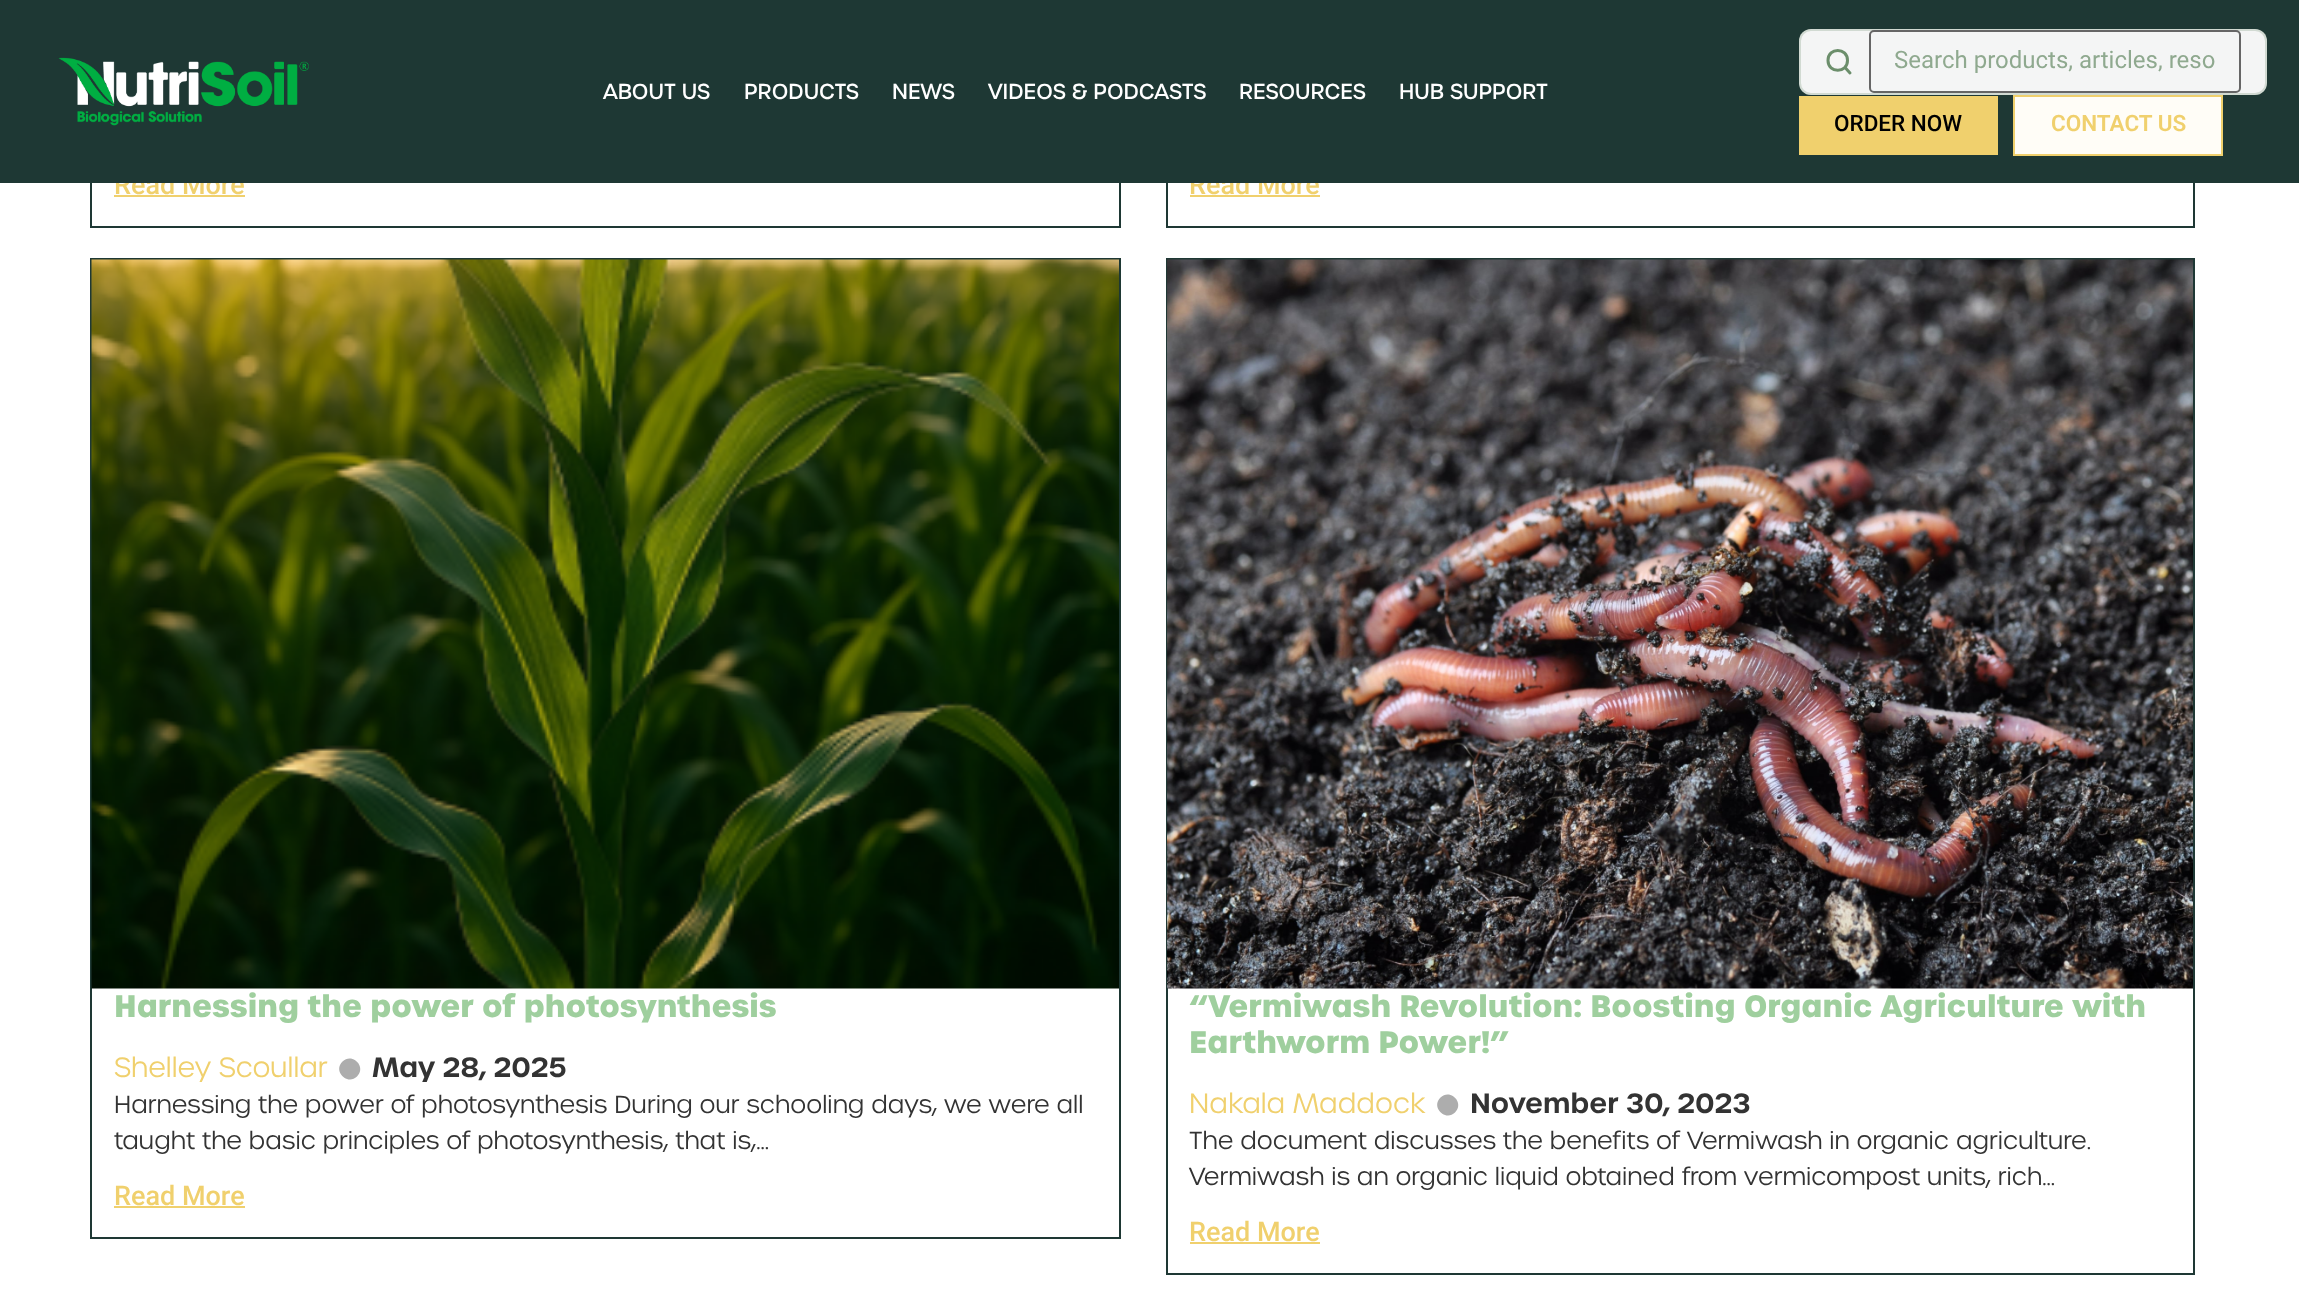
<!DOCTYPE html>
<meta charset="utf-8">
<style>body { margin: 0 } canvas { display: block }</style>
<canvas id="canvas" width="2299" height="1289"></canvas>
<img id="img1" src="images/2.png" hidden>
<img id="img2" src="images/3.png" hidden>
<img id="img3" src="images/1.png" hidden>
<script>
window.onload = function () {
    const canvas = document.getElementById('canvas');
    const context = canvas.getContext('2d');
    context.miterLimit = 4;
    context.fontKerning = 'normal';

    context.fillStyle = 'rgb(255, 255, 255)';
    context.fillRect(0, 0, 2299, 1289);
    context.strokeStyle = 'rgb(30, 56, 52)';
    context.lineWidth = 2;
    context.strokeRect(91, -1, 1029, 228);
    context.fillStyle = 'rgb(240, 208, 109)';
    context.fillRect(114, 195, 131, 2);
    context.strokeRect(1167, -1, 1027, 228);
    context.fillRect(1190, 195, 130, 2);
    context.strokeRect(91, 259, 1029, 979);
    context.drawImage(document.getElementById('img1'), 91, 259, 1028, 730);
    context.fillStyle = 'rgb(173, 173, 173)';
    context.beginPath();
    context.moveTo(342.5, 1061.5);
    context.bezierCurveTo(352, 1052, 367, 1066.5, 357, 1076.5);
    context.bezierCurveTo(347.5, 1086, 332.5, 1071, 342.5, 1061.5);
    context.closePath();
    context.fill();
    context.fillStyle = 'rgb(240, 208, 109)';
    context.fillRect(114, 1206, 131, 2);
    context.strokeRect(1167, 259, 1027, 1015);
    context.drawImage(document.getElementById('img2'), 1167, 259, 1026, 730);
    context.fillStyle = 'rgb(173, 173, 173)';
    context.beginPath();
    context.moveTo(1440.5, 1097.5);
    context.bezierCurveTo(1450, 1088, 1465, 1102.5, 1455, 1112.5);
    context.bezierCurveTo(1445.5, 1122, 1430.5, 1107, 1440.5, 1097.5);
    context.closePath();
    context.fill();
    context.fillStyle = 'rgb(240, 208, 109)';
    context.fillRect(1190, 1242, 130, 2);
    context.font = '500 27px Roboto';
    context.fillText('Read More', 114, 194);
    context.fillText('Read More', 1189, 194);
    context.fillStyle = 'rgb(30, 56, 52)';
    context.fillRect(0, 0, 2299, 183);
    context.font = '500 21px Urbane';
    context.fillStyle = 'rgb(255, 255, 255)';
    context.fillText('HUB SUPPORT', 1399, 99);
    context.fillText('RESOURCES', 1239, 99);
    context.fillText('VIDEOS & PODCASTS', 988, 99);
    context.fillText('NEWS', 892, 99);
    context.fillText('PRODUCTS', 744, 99);
    context.fillText('ABOUT US', 603, 99);
    context.fillStyle = 'rgb(255, 253, 247)';
    context.beginPath();
    context.rect(2014, 96, 208, 59);
    context.fill();
    context.strokeStyle = 'rgb(240, 208, 109)';
    context.stroke();
    context.font = '600 22.5px Roboto';
    context.fillStyle = 'rgb(240, 208, 109)';
    context.fillText('CONTACT US', 2051, 131);
    context.fillRect(1799, 96, 199, 59);
    context.font = '500 22.5px Roboto';
    context.fillStyle = 'rgb(0, 0, 0)';
    context.fillText('ORDER NOW', 1834, 131);
    context.fillStyle = 'rgb(244, 245, 245)';
    context.beginPath();
    context.roundRect(1799, 29, 468, 66, 12);
    context.fill();
    context.beginPath();
    context.roundRect(1800, 30, 466, 64, 11);
    context.strokeStyle = 'rgba(72, 112, 72, 0.2)';
    context.stroke();
    context.beginPath();
    context.moveTo(1850, 73);
    context.lineTo(1845, 67.5);
    context.moveTo(1847.5, 60.5);
    context.bezierCurveTo(1847.5, 73.5, 1828, 73.5, 1828, 60.5);
    context.bezierCurveTo(1828, 47, 1847.5, 47, 1847.5, 60.5);
    context.closePath();
    context.strokeStyle = 'rgb(107, 142, 107)';
    context.lineWidth = 3;
    context.lineCap = 'round';
    context.lineJoin = 'round';
    context.stroke();
    context.beginPath();
    context.roundRect(1870, 31, 370, 61, 4);
    context.strokeStyle = 'rgb(102, 102, 102)';
    context.lineWidth = 2;
    context.lineJoin = 'miter';
    context.stroke();
    context.font = '24px Roboto';
    context.fillStyle = 'rgb(143, 169, 143)';
    context.fillText('Search products, articles, reso', 1894, 68);
    context.drawImage(document.getElementById('img3'), 58, 57, 251, 69);
    context.font = 'bold 30px Urbane';
    context.fillStyle = 'rgb(159, 207, 158)';
    context.fillText('Harnessing the power of photosynthesis', 114, 1017);
    context.font = '300 27px Urbane';
    context.fillStyle = 'rgb(240, 208, 109)';
    context.fillText('Shelley Scoullar', 114, 1077);
    context.font = '600 27px Urbane';
    context.fillStyle = 'rgb(51, 51, 51)';
    context.fillText('May 28, 2025', 372, 1077);
    context.font = '300 24px Urbane';
    context.fillText('Harnessing the power of photosynthesis During our schooling days, we were all', 114, 1113);
    context.fillText('taught the basic principles of photosynthesis, that is,...', 114, 1149);
    context.font = '500 27px Roboto';
    context.fillStyle = 'rgb(240, 208, 109)';
    context.fillText('Read More', 114, 1205);
    context.font = 'bold 30px Urbane';
    context.fillStyle = 'rgb(159, 207, 158)';
    context.fillText('“Vermiwash Revolution: Boosting Organic Agriculture with', 1189, 1017);
    context.fillText('Earthworm Power!”', 1189, 1053);
    context.font = '300 27px Urbane';
    context.fillStyle = 'rgb(240, 208, 109)';
    context.fillText('Nakala Maddock', 1189, 1113);
    context.font = '600 27px Urbane';
    context.fillStyle = 'rgb(51, 51, 51)';
    context.fillText('November 30, 2023', 1470, 1113);
    context.font = '300 24px Urbane';
    context.fillText('The document discusses the benefits of Vermiwash in organic agriculture.', 1189, 1149);
    context.fillText('Vermiwash is an organic liquid obtained from vermicompost units, rich...', 1189, 1185);
    context.font = '500 27px Roboto';
    context.fillStyle = 'rgb(240, 208, 109)';
    context.fillText('Read More', 1189, 1241);
};
</script>
